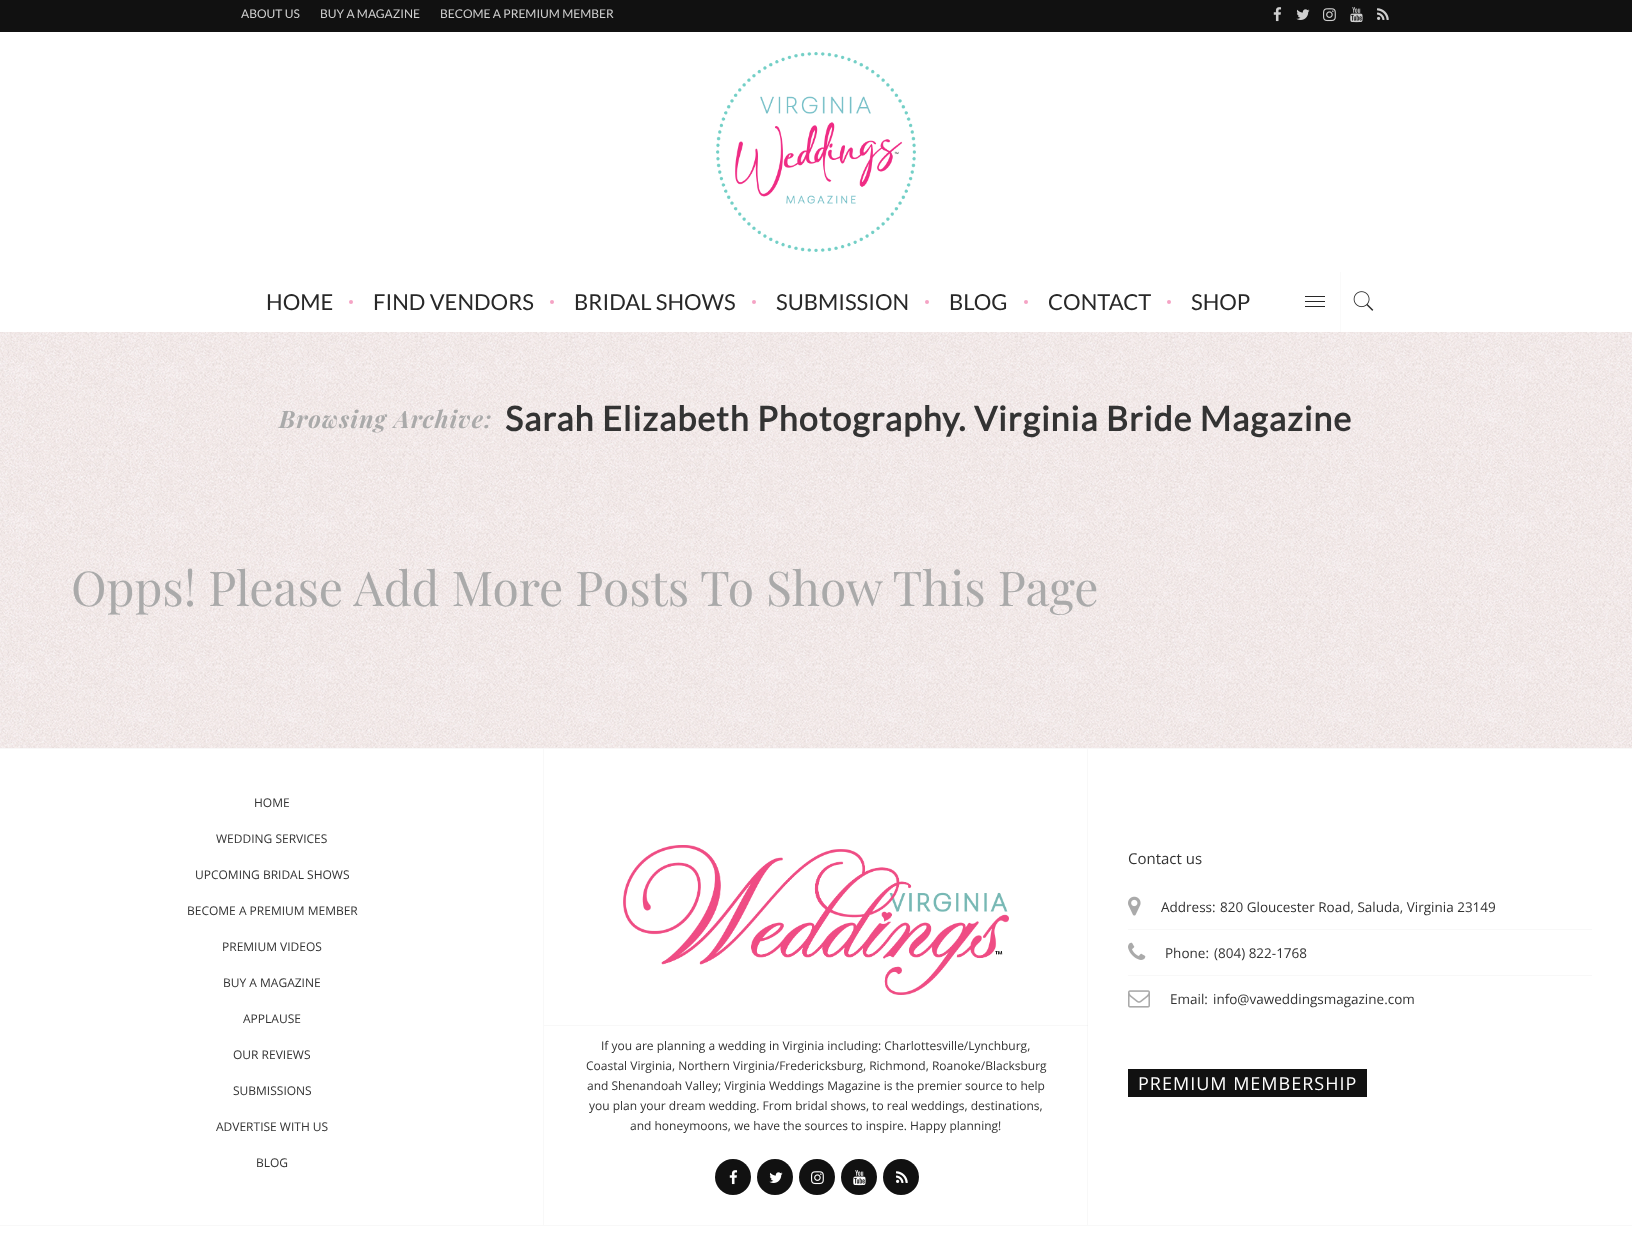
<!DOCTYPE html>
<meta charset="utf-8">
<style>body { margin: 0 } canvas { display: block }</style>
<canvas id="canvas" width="1632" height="1240"></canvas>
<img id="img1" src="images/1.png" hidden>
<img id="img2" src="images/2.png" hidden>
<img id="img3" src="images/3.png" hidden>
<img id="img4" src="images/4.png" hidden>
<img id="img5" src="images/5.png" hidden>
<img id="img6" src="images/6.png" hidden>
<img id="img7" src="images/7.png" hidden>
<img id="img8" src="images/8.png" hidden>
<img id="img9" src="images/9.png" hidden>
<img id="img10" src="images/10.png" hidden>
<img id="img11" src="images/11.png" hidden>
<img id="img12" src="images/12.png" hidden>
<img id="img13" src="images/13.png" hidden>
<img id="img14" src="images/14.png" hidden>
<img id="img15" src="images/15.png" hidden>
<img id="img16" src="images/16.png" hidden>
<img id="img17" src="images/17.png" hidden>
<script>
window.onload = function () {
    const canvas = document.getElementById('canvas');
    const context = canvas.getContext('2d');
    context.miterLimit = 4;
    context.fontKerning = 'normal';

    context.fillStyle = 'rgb(255, 255, 255)';
    context.fillRect(0, 0, 1632, 1240);
    context.drawImage(document.getElementById('img1'), 0, 332, 1632, 416);
    context.fillStyle = 'rgb(17, 17, 17)';
    context.fillRect(0, 0, 1632, 32);
    context.drawImage(document.getElementById('img2'), 1273, 7, 9, 15);
    context.drawImage(document.getElementById('img3'), 1296, 9, 14, 11);
    context.drawImage(document.getElementById('img4'), 1323, 8, 13, 14);
    context.drawImage(document.getElementById('img5'), 1350, 7, 13, 16);
    context.drawImage(document.getElementById('img6'), 1377, 8, 12, 12);
    context.drawImage(document.getElementById('img7'), 716, 52, 200, 200);
    context.fillStyle = 'rgb(245, 163, 197)';
    context.beginPath();
    context.arc(351, 302, 2, 0, 2 * Math.PI);
    context.fill();
    context.beginPath();
    context.arc(552, 302, 2, 0, 2 * Math.PI);
    context.fill();
    context.beginPath();
    context.arc(754, 302, 2, 0, 2 * Math.PI);
    context.fill();
    context.beginPath();
    context.arc(927, 302, 2, 0, 2 * Math.PI);
    context.fill();
    context.beginPath();
    context.arc(1026, 302, 2, 0, 2 * Math.PI);
    context.fill();
    context.beginPath();
    context.arc(1169, 302, 2, 0, 2 * Math.PI);
    context.fill();
    context.fillStyle = 'rgb(40, 40, 40)';
    context.fillRect(1305, 301, 20, 1);
    context.fillRect(1305, 296, 20, 1);
    context.fillRect(1305, 306, 20, 1);
    context.fillStyle = 'rgb(250, 250, 250)';
    context.fillRect(1340, 272, 1, 60);
    context.drawImage(document.getElementById('img8'), 1353, 291, 21, 20);
    context.fillStyle = 'rgb(248, 248, 248)';
    context.fillRect(0, 748, 1632, 1);
    context.fillRect(543, 749, 1, 476);
    context.fillRect(544, 1025, 544, 1);
    context.drawImage(document.getElementById('img9'), 623, 845, 386, 150);
    context.fillStyle = 'rgb(17, 17, 17)';
    context.beginPath();
    context.arc(733, 1177, 18, 0, 2 * Math.PI);
    context.fill();
    context.drawImage(document.getElementById('img10'), 729, 1170, 9, 15);
    context.beginPath();
    context.arc(775, 1177, 18, 0, 2 * Math.PI);
    context.fill();
    context.drawImage(document.getElementById('img11'), 769, 1172, 14, 11);
    context.beginPath();
    context.arc(817, 1177, 18, 0, 2 * Math.PI);
    context.fill();
    context.drawImage(document.getElementById('img12'), 811, 1171, 13, 14);
    context.beginPath();
    context.arc(859, 1177, 18, 0, 2 * Math.PI);
    context.fill();
    context.drawImage(document.getElementById('img13'), 853, 1170, 13, 16);
    context.beginPath();
    context.arc(901, 1177, 18, 0, 2 * Math.PI);
    context.fill();
    context.drawImage(document.getElementById('img14'), 896, 1171, 12, 12);
    context.fillStyle = 'rgba(28, 28, 28, 0.03)';
    context.fillRect(1087, 749, 1, 476);
    context.fillStyle = 'rgb(248, 248, 248)';
    context.fillRect(1128, 929, 464, 1);
    context.drawImage(document.getElementById('img15'), 1128, 896, 13, 20);
    context.fillRect(1128, 975, 464, 1);
    context.drawImage(document.getElementById('img16'), 1128, 942, 18, 18);
    context.drawImage(document.getElementById('img17'), 1128, 990, 22, 18);
    context.fillStyle = 'rgb(17, 17, 17)';
    context.fillRect(1128, 1069, 239, 28);
    context.fillStyle = 'rgb(248, 248, 248)';
    context.fillRect(0, 1225, 1632, 1);
    context.font = '12px Lato';
    context.fillStyle = 'rgb(207, 207, 207)';
    context.fillText('ABOUT US', 241, 18);
    context.fillText('BUY A MAGAZINE', 320, 18);
    context.fillText('BECOME A PREMIUM MEMBER', 440, 18);
    context.font = '22px Lato';
    context.fillStyle = 'rgb(40, 40, 40)';
    context.fillText('HOME', 266, 310);
    context.fillText('FIND VENDORS', 373, 310);
    context.fillText('BRIDAL SHOWS', 574, 310);
    context.fillText('SUBMISSION', 776, 310);
    context.fillText('BLOG', 949, 310);
    context.fillText('CONTACT', 1048, 310);
    context.fillText('SHOP', 1191, 310);
    context.letterSpacing = '1px';
    context.font = 'italic bold 24px Playfair Display';
    context.fillStyle = 'rgb(170, 170, 170)';
    context.fillText('Browsing Archive:', 279, 428);
    context.font = 'bold 34px Lato';
    context.fillStyle = 'rgb(51, 51, 51)';
    context.fillText('Sarah Elizabeth Photography. Virginia Bride Magazine', 505, 431);
    context.letterSpacing = '0px';
    context.font = '48px Playfair Display';
    context.fillStyle = 'rgb(170, 170, 170)';
    context.fillText('Opps! Please Add More Posts To Show This Page', 71, 606);
    context.font = '12px Open Sans';
    context.fillStyle = 'rgb(51, 51, 51)';
    context.fillText('HOME', 254, 807);
    context.fillText('WEDDING SERVICES', 216, 843);
    context.fillText('UPCOMING BRIDAL SHOWS', 195, 879);
    context.fillText('BECOME A PREMIUM MEMBER', 187, 915);
    context.fillText('PREMIUM VIDEOS', 222, 951);
    context.fillText('BUY A MAGAZINE', 223, 987);
    context.fillText('APPLAUSE', 243, 1023);
    context.fillText('OUR REVIEWS', 233, 1059);
    context.fillText('SUBMISSIONS', 233, 1095);
    context.fillText('ADVERTISE WITH US', 216, 1131);
    context.fillText('BLOG', 256, 1167);
    context.fillText('If you are planning a wedding in Virginia including: Charlottesville/Lynchburg,', 601, 1050);
    context.fillText('Coastal Virginia, Northern Virginia/Fredericksburg, Richmond, Roanoke/Blacksburg', 586, 1070);
    context.fillText('and Shenandoah Valley; Virginia Weddings Magazine is the premier source to help', 587, 1090);
    context.fillText('you plan your dream wedding. From bridal shows, to real weddings, destinations,', 589, 1110);
    context.fillText('and honeymoons, we have the sources to inspire. Happy planning!', 630, 1130);
    context.font = '15px Open Sans';
    context.fillText('Contact us', 1128, 864);
    context.font = '13.5px Open Sans';
    context.fillText('Address:', 1161, 912);
    context.fillText('820 Gloucester Road, Saluda, Virginia 23149', 1220, 912);
    context.fillText('Phone:', 1165, 958);
    context.fillText('(804) 822-1768', 1214, 958);
    context.fillText('Email:', 1170, 1004);
    context.fillText('info@vaweddingsmagazine.com', 1213, 1004);
    context.letterSpacing = '1px';
    context.font = '18px Open Sans';
    context.fillStyle = 'rgb(255, 255, 255)';
    context.fillText('PREMIUM MEMBERSHIP', 1138, 1090);
};
</script>
